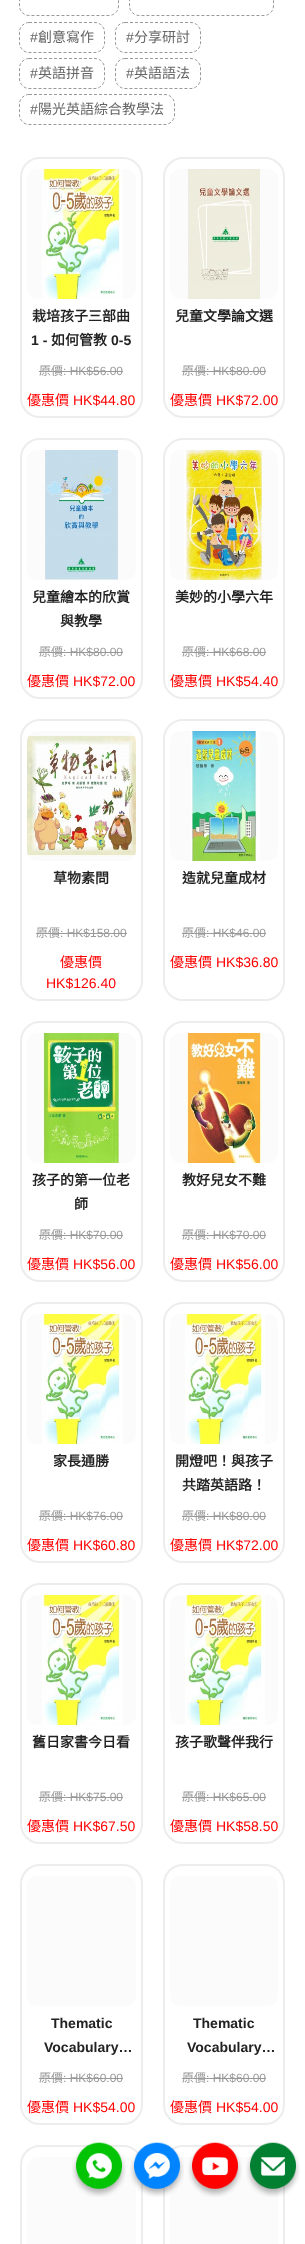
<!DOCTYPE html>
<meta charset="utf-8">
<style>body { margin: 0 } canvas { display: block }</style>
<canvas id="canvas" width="305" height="2244"></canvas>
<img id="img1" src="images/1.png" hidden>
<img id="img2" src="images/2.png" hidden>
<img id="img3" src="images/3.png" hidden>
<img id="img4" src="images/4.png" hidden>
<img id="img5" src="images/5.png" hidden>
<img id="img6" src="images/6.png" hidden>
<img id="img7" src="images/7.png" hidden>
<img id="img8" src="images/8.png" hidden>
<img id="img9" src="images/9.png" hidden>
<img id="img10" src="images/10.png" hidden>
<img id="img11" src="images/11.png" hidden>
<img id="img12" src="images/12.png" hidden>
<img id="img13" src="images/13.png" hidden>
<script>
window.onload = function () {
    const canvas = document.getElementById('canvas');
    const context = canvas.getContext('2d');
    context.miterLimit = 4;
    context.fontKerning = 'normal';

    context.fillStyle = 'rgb(255, 255, 255)';
    context.fillRect(0, 0, 305, 2244);
    context.beginPath();
    context.moveTo(29, -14.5);
    context.lineTo(109, -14.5);
    context.bezierCurveTo(114, -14.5, 118.5, -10, 118.5, -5);
    context.lineTo(118.5, 6);
    context.bezierCurveTo(118.5, 11, 114, 15.5, 109, 15.5);
    context.lineTo(29, 15.5);
    context.bezierCurveTo(24, 15.5, 19.5, 11, 19.5, 6);
    context.lineTo(19.5, -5);
    context.bezierCurveTo(19.5, -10, 24, -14.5, 29, -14.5);
    context.closePath();
    context.strokeStyle = 'rgb(153, 153, 153)';
    context.setLineDash([3, 2]);
    context.stroke();
    context.beginPath();
    context.moveTo(139, -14.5);
    context.lineTo(264, -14.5);
    context.bezierCurveTo(269, -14.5, 273.5, -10, 273.5, -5);
    context.lineTo(273.5, 6);
    context.bezierCurveTo(273.5, 11, 269, 15.5, 264, 15.5);
    context.lineTo(139, 15.5);
    context.bezierCurveTo(134, 15.5, 129.5, 11, 129.5, 6);
    context.lineTo(129.5, -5);
    context.bezierCurveTo(129.5, -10, 134, -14.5, 139, -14.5);
    context.closePath();
    context.stroke();
    context.beginPath();
    context.moveTo(29, 22.5);
    context.lineTo(95, 22.5);
    context.bezierCurveTo(100, 22.5, 104.5, 27, 104.5, 32);
    context.lineTo(104.5, 43);
    context.bezierCurveTo(104.5, 48, 100, 52.5, 95, 52.5);
    context.lineTo(29, 52.5);
    context.bezierCurveTo(24, 52.5, 19.5, 48, 19.5, 43);
    context.lineTo(19.5, 32);
    context.bezierCurveTo(19.5, 27, 24, 22.5, 29, 22.5);
    context.closePath();
    context.stroke();
    context.beginPath();
    context.moveTo(125, 22.5);
    context.lineTo(191, 22.5);
    context.bezierCurveTo(196, 22.5, 200.5, 27, 200.5, 32);
    context.lineTo(200.5, 43);
    context.bezierCurveTo(200.5, 48, 196, 52.5, 191, 52.5);
    context.lineTo(125, 52.5);
    context.bezierCurveTo(120, 52.5, 115.5, 48, 115.5, 43);
    context.lineTo(115.5, 32);
    context.bezierCurveTo(115.5, 27, 120, 22.5, 125, 22.5);
    context.closePath();
    context.stroke();
    context.beginPath();
    context.moveTo(29, 58.5);
    context.lineTo(95, 58.5);
    context.bezierCurveTo(100, 58.5, 104.5, 63, 104.5, 68);
    context.lineTo(104.5, 79);
    context.bezierCurveTo(104.5, 84, 100, 88.5, 95, 88.5);
    context.lineTo(29, 88.5);
    context.bezierCurveTo(24, 88.5, 19.5, 84, 19.5, 79);
    context.lineTo(19.5, 68);
    context.bezierCurveTo(19.5, 63, 24, 58.5, 29, 58.5);
    context.closePath();
    context.stroke();
    context.beginPath();
    context.moveTo(125, 58.5);
    context.lineTo(191, 58.5);
    context.bezierCurveTo(196, 58.5, 200.5, 63, 200.5, 68);
    context.lineTo(200.5, 79);
    context.bezierCurveTo(200.5, 84, 196, 88.5, 191, 88.5);
    context.lineTo(125, 88.5);
    context.bezierCurveTo(120, 88.5, 115.5, 84, 115.5, 79);
    context.lineTo(115.5, 68);
    context.bezierCurveTo(115.5, 63, 120, 58.5, 125, 58.5);
    context.closePath();
    context.stroke();
    context.beginPath();
    context.moveTo(29, 94.5);
    context.lineTo(165, 94.5);
    context.bezierCurveTo(170, 94.5, 174.5, 99, 174.5, 104);
    context.lineTo(174.5, 115);
    context.bezierCurveTo(174.5, 120, 170, 124.5, 165, 124.5);
    context.lineTo(29, 124.5);
    context.bezierCurveTo(24, 124.5, 19.5, 120, 19.5, 115);
    context.lineTo(19.5, 104);
    context.bezierCurveTo(19.5, 99, 24, 94.5, 29, 94.5);
    context.closePath();
    context.stroke();
    context.beginPath();
    context.roundRect(21, 158, 121, 259, 19);
    context.strokeStyle = 'rgb(237, 237, 237)';
    context.lineWidth = 2;
    context.setLineDash([]);
    context.stroke();
    context.fillStyle = 'rgb(251, 251, 251)';
    context.beginPath();
    context.roundRect(27, 169, 109, 130, 10);
    context.fill();
    context.drawImage(document.getElementById('img1'), 42, 169, 81, 130);
    context.fillStyle = 'rgb(153, 153, 153)';
    context.fillRect(39, 371, 84, 1);
    context.beginPath();
    context.roundRect(164, 158, 120, 259, 19);
    context.stroke();
    context.fillStyle = 'rgb(251, 251, 251)';
    context.beginPath();
    context.roundRect(170, 169, 108, 130, 10);
    context.fill();
    context.drawImage(document.getElementById('img2'), 188, 169, 72, 130);
    context.fillStyle = 'rgb(153, 153, 153)';
    context.fillRect(182, 371, 84, 1);
    context.beginPath();
    context.roundRect(21, 439, 121, 259, 19);
    context.stroke();
    context.fillStyle = 'rgb(251, 251, 251)';
    context.beginPath();
    context.roundRect(27, 450, 109, 130, 10);
    context.fill();
    context.drawImage(document.getElementById('img3'), 45, 450, 73, 130);
    context.fillStyle = 'rgb(153, 153, 153)';
    context.fillRect(39, 652, 84, 1);
    context.beginPath();
    context.roundRect(164, 439, 120, 259, 19);
    context.stroke();
    context.fillStyle = 'rgb(251, 251, 251)';
    context.beginPath();
    context.roundRect(170, 450, 108, 130, 10);
    context.fill();
    context.drawImage(document.getElementById('img4'), 184, 450, 78, 130);
    context.fillStyle = 'rgb(153, 153, 153)';
    context.fillRect(182, 652, 84, 1);
    context.beginPath();
    context.roundRect(21, 720, 121, 280, 19);
    context.stroke();
    context.fillStyle = 'rgb(251, 251, 251)';
    context.beginPath();
    context.roundRect(27, 731, 109, 130, 10);
    context.fill();
    context.drawImage(document.getElementById('img5'), 27, 736, 109, 120);
    context.fillStyle = 'rgb(153, 153, 153)';
    context.fillRect(36, 933, 91, 1);
    context.beginPath();
    context.roundRect(164, 720, 120, 280, 19);
    context.stroke();
    context.fillStyle = 'rgb(251, 251, 251)';
    context.beginPath();
    context.roundRect(170, 731, 108, 130, 10);
    context.fill();
    context.drawImage(document.getElementById('img6'), 191, 731, 69, 130);
    context.fillStyle = 'rgb(153, 153, 153)';
    context.fillRect(182, 933, 84, 1);
    context.beginPath();
    context.roundRect(21, 1022, 121, 259, 19);
    context.stroke();
    context.fillStyle = 'rgb(251, 251, 251)';
    context.beginPath();
    context.roundRect(27, 1033, 109, 130, 10);
    context.fill();
    context.drawImage(document.getElementById('img7'), 43, 1033, 76, 130);
    context.fillStyle = 'rgb(153, 153, 153)';
    context.fillRect(39, 1235, 84, 1);
    context.beginPath();
    context.roundRect(164, 1022, 120, 259, 19);
    context.stroke();
    context.fillStyle = 'rgb(251, 251, 251)';
    context.beginPath();
    context.roundRect(170, 1033, 108, 130, 10);
    context.fill();
    context.drawImage(document.getElementById('img8'), 187, 1033, 74, 130);
    context.fillStyle = 'rgb(153, 153, 153)';
    context.fillRect(182, 1235, 84, 1);
    context.beginPath();
    context.roundRect(21, 1303, 121, 259, 19);
    context.stroke();
    context.fillStyle = 'rgb(251, 251, 251)';
    context.beginPath();
    context.roundRect(27, 1314, 109, 130, 10);
    context.fill();
    context.drawImage(document.getElementById('img1'), 42, 1314, 81, 130);
    context.fillStyle = 'rgb(153, 153, 153)';
    context.fillRect(39, 1516, 84, 1);
    context.beginPath();
    context.roundRect(164, 1303, 120, 259, 19);
    context.stroke();
    context.fillStyle = 'rgb(251, 251, 251)';
    context.beginPath();
    context.roundRect(170, 1314, 108, 130, 10);
    context.fill();
    context.drawImage(document.getElementById('img9'), 185, 1314, 80, 130);
    context.fillStyle = 'rgb(153, 153, 153)';
    context.fillRect(182, 1516, 84, 1);
    context.beginPath();
    context.roundRect(21, 1584, 121, 259, 19);
    context.stroke();
    context.fillStyle = 'rgb(251, 251, 251)';
    context.beginPath();
    context.roundRect(27, 1595, 109, 130, 10);
    context.fill();
    context.drawImage(document.getElementById('img1'), 42, 1595, 81, 130);
    context.fillStyle = 'rgb(153, 153, 153)';
    context.fillRect(39, 1797, 84, 1);
    context.beginPath();
    context.roundRect(164, 1584, 120, 259, 19);
    context.stroke();
    context.fillStyle = 'rgb(251, 251, 251)';
    context.beginPath();
    context.roundRect(170, 1595, 108, 130, 10);
    context.fill();
    context.drawImage(document.getElementById('img9'), 185, 1595, 80, 130);
    context.fillStyle = 'rgb(153, 153, 153)';
    context.fillRect(182, 1797, 84, 1);
    context.beginPath();
    context.roundRect(21, 1865, 121, 259, 19);
    context.stroke();
    context.fillStyle = 'rgb(251, 251, 251)';
    context.beginPath();
    context.roundRect(27, 1876, 109, 130, 10);
    context.fill();
    context.fillStyle = 'rgb(153, 153, 153)';
    context.fillRect(39, 2078, 84, 1);
    context.beginPath();
    context.roundRect(164, 1865, 120, 259, 19);
    context.stroke();
    context.fillStyle = 'rgb(251, 251, 251)';
    context.beginPath();
    context.roundRect(170, 1876, 108, 130, 10);
    context.fill();
    context.fillStyle = 'rgb(153, 153, 153)';
    context.fillRect(182, 2078, 84, 1);
    context.beginPath();
    context.roundRect(21, 2146, 121, 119, 19);
    context.stroke();
    context.fillStyle = 'rgb(251, 251, 251)';
    context.beginPath();
    context.roundRect(27, 2157, 109, 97, 10);
    context.fill();
    context.beginPath();
    context.roundRect(164, 2146, 120, 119, 19);
    context.stroke();
    context.beginPath();
    context.roundRect(170, 2157, 108, 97, 10);
    context.fill();
    context.drawImage(document.getElementById('img10'), 72, 2142, 54, 55);
    context.drawImage(document.getElementById('img11'), 130, 2142, 54, 55);
    context.drawImage(document.getElementById('img12'), 188, 2142, 54, 55);
    context.drawImage(document.getElementById('img13'), 246, 2142, 54, 55);
    context.font = '14px Liberation Sans';
    context.fillStyle = 'rgb(102, 102, 102)';
    context.fillText('#', 30, 42);
    context.font = '14px Noto Sans CJK HK';
    context.fillText('創意寫作', 38, 42);
    context.font = '14px Liberation Sans';
    context.fillText('#', 126, 42);
    context.font = '14px Noto Sans CJK HK';
    context.fillText('分享研討', 134, 42);
    context.font = '14px Liberation Sans';
    context.fillText('#', 30, 78);
    context.font = '14px Noto Sans CJK HK';
    context.fillText('英語拼音', 38, 78);
    context.font = '14px Liberation Sans';
    context.fillText('#', 126, 78);
    context.font = '14px Noto Sans CJK HK';
    context.fillText('英語語法', 134, 78);
    context.font = '14px Liberation Sans';
    context.fillText('#', 30, 114);
    context.font = '14px Noto Sans CJK HK';
    context.fillText('陽光英語綜合教學法', 38, 114);
    context.font = 'bold 14px Noto Sans CJK HK';
    context.fillStyle = 'rgb(34, 34, 34)';
    context.fillText('栽培孩子三部曲', 32, 321);
    context.font = 'bold 14px Liberation Sans';
    context.fillText('1 -', 31, 345);
    context.font = 'bold 14px Noto Sans CJK HK';
    context.fillText('如何管教', 51, 345);
    context.font = 'bold 14px Liberation Sans';
    context.fillText('0-5', 111, 345);
    context.font = '12px Noto Sans CJK HK';
    context.fillStyle = 'rgb(153, 153, 153)';
    context.fillText('原價', 39, 375);
    context.font = '12px Liberation Sans';
    context.fillText(': HK$56.00', 63, 375);
    context.font = '14px Noto Sans CJK HK';
    context.fillStyle = 'rgb(255, 0, 0)';
    context.fillText('優惠價', 27, 405);
    context.font = '14px Liberation Sans';
    context.fillText('HK$44.80', 73, 405);
    context.font = 'bold 14px Noto Sans CJK HK';
    context.fillStyle = 'rgb(34, 34, 34)';
    context.fillText('兒童文學論文選', 175, 321);
    context.font = '12px Noto Sans CJK HK';
    context.fillStyle = 'rgb(153, 153, 153)';
    context.fillText('原價', 182, 375);
    context.font = '12px Liberation Sans';
    context.fillText(': HK$80.00', 206, 375);
    context.font = '14px Noto Sans CJK HK';
    context.fillStyle = 'rgb(255, 0, 0)';
    context.fillText('優惠價', 170, 405);
    context.font = '14px Liberation Sans';
    context.fillText('HK$72.00', 216, 405);
    context.font = 'bold 14px Noto Sans CJK HK';
    context.fillStyle = 'rgb(34, 34, 34)';
    context.fillText('兒童繪本的欣賞', 32, 602);
    context.fillText('與教學', 60, 626);
    context.font = '12px Noto Sans CJK HK';
    context.fillStyle = 'rgb(153, 153, 153)';
    context.fillText('原價', 39, 656);
    context.font = '12px Liberation Sans';
    context.fillText(': HK$80.00', 63, 656);
    context.font = '14px Noto Sans CJK HK';
    context.fillStyle = 'rgb(255, 0, 0)';
    context.fillText('優惠價', 27, 686);
    context.font = '14px Liberation Sans';
    context.fillText('HK$72.00', 73, 686);
    context.font = 'bold 14px Noto Sans CJK HK';
    context.fillStyle = 'rgb(34, 34, 34)';
    context.fillText('美妙的小學六年', 175, 602);
    context.font = '12px Noto Sans CJK HK';
    context.fillStyle = 'rgb(153, 153, 153)';
    context.fillText('原價', 182, 656);
    context.font = '12px Liberation Sans';
    context.fillText(': HK$68.00', 206, 656);
    context.font = '14px Noto Sans CJK HK';
    context.fillStyle = 'rgb(255, 0, 0)';
    context.fillText('優惠價', 170, 686);
    context.font = '14px Liberation Sans';
    context.fillText('HK$54.40', 216, 686);
    context.font = 'bold 14px Noto Sans CJK HK';
    context.fillStyle = 'rgb(34, 34, 34)';
    context.fillText('草物素問', 53, 883);
    context.font = '12px Noto Sans CJK HK';
    context.fillStyle = 'rgb(153, 153, 153)';
    context.fillText('原價', 36, 937);
    context.font = '12px Liberation Sans';
    context.fillText(': HK$158.00', 60, 937);
    context.font = '14px Noto Sans CJK HK';
    context.fillStyle = 'rgb(255, 0, 0)';
    context.fillText('優惠價', 60, 967);
    context.font = '14px Liberation Sans';
    context.fillText('HK$126.40', 46, 988);
    context.font = 'bold 14px Noto Sans CJK HK';
    context.fillStyle = 'rgb(34, 34, 34)';
    context.fillText('造就兒童成材', 182, 883);
    context.font = '12px Noto Sans CJK HK';
    context.fillStyle = 'rgb(153, 153, 153)';
    context.fillText('原價', 182, 937);
    context.font = '12px Liberation Sans';
    context.fillText(': HK$46.00', 206, 937);
    context.font = '14px Noto Sans CJK HK';
    context.fillStyle = 'rgb(255, 0, 0)';
    context.fillText('優惠價', 170, 967);
    context.font = '14px Liberation Sans';
    context.fillText('HK$36.80', 216, 967);
    context.font = 'bold 14px Noto Sans CJK HK';
    context.fillStyle = 'rgb(34, 34, 34)';
    context.fillText('孩子的第一位老', 32, 1185);
    context.fillText('師', 74, 1209);
    context.font = '12px Noto Sans CJK HK';
    context.fillStyle = 'rgb(153, 153, 153)';
    context.fillText('原價', 39, 1239);
    context.font = '12px Liberation Sans';
    context.fillText(': HK$70.00', 63, 1239);
    context.font = '14px Noto Sans CJK HK';
    context.fillStyle = 'rgb(255, 0, 0)';
    context.fillText('優惠價', 27, 1269);
    context.font = '14px Liberation Sans';
    context.fillText('HK$56.00', 73, 1269);
    context.font = 'bold 14px Noto Sans CJK HK';
    context.fillStyle = 'rgb(34, 34, 34)';
    context.fillText('教好兒女不難', 182, 1185);
    context.font = '12px Noto Sans CJK HK';
    context.fillStyle = 'rgb(153, 153, 153)';
    context.fillText('原價', 182, 1239);
    context.font = '12px Liberation Sans';
    context.fillText(': HK$70.00', 206, 1239);
    context.font = '14px Noto Sans CJK HK';
    context.fillStyle = 'rgb(255, 0, 0)';
    context.fillText('優惠價', 170, 1269);
    context.font = '14px Liberation Sans';
    context.fillText('HK$56.00', 216, 1269);
    context.font = 'bold 14px Noto Sans CJK HK';
    context.fillStyle = 'rgb(34, 34, 34)';
    context.fillText('家長通勝', 53, 1466);
    context.font = '12px Noto Sans CJK HK';
    context.fillStyle = 'rgb(153, 153, 153)';
    context.fillText('原價', 39, 1520);
    context.font = '12px Liberation Sans';
    context.fillText(': HK$76.00', 63, 1520);
    context.font = '14px Noto Sans CJK HK';
    context.fillStyle = 'rgb(255, 0, 0)';
    context.fillText('優惠價', 27, 1550);
    context.font = '14px Liberation Sans';
    context.fillText('HK$60.80', 73, 1550);
    context.font = 'bold 14px Noto Sans CJK HK';
    context.fillStyle = 'rgb(34, 34, 34)';
    context.fillText('開燈吧！與孩子', 175, 1466);
    context.fillText('共踏英語路！', 182, 1490);
    context.font = '12px Noto Sans CJK HK';
    context.fillStyle = 'rgb(153, 153, 153)';
    context.fillText('原價', 182, 1520);
    context.font = '12px Liberation Sans';
    context.fillText(': HK$80.00', 206, 1520);
    context.font = '14px Noto Sans CJK HK';
    context.fillStyle = 'rgb(255, 0, 0)';
    context.fillText('優惠價', 170, 1550);
    context.font = '14px Liberation Sans';
    context.fillText('HK$72.00', 216, 1550);
    context.font = 'bold 14px Noto Sans CJK HK';
    context.fillStyle = 'rgb(34, 34, 34)';
    context.fillText('舊日家書今日看', 32, 1747);
    context.font = '12px Noto Sans CJK HK';
    context.fillStyle = 'rgb(153, 153, 153)';
    context.fillText('原價', 39, 1801);
    context.font = '12px Liberation Sans';
    context.fillText(': HK$75.00', 63, 1801);
    context.font = '14px Noto Sans CJK HK';
    context.fillStyle = 'rgb(255, 0, 0)';
    context.fillText('優惠價', 27, 1831);
    context.font = '14px Liberation Sans';
    context.fillText('HK$67.50', 73, 1831);
    context.font = 'bold 14px Noto Sans CJK HK';
    context.fillStyle = 'rgb(34, 34, 34)';
    context.fillText('孩子歌聲伴我行', 175, 1747);
    context.font = '12px Noto Sans CJK HK';
    context.fillStyle = 'rgb(153, 153, 153)';
    context.fillText('原價', 182, 1801);
    context.font = '12px Liberation Sans';
    context.fillText(': HK$65.00', 206, 1801);
    context.font = '14px Noto Sans CJK HK';
    context.fillStyle = 'rgb(255, 0, 0)';
    context.fillText('優惠價', 170, 1831);
    context.font = '14px Liberation Sans';
    context.fillText('HK$58.50', 216, 1831);
    context.font = 'bold 14px Liberation Sans';
    context.fillStyle = 'rgb(34, 34, 34)';
    context.fillText('Thematic', 51, 2028);
    context.fillText('Vocabulary…', 44, 2052);
    context.font = '12px Noto Sans CJK HK';
    context.fillStyle = 'rgb(153, 153, 153)';
    context.fillText('原價', 39, 2082);
    context.font = '12px Liberation Sans';
    context.fillText(': HK$60.00', 63, 2082);
    context.font = '14px Noto Sans CJK HK';
    context.fillStyle = 'rgb(255, 0, 0)';
    context.fillText('優惠價', 27, 2112);
    context.font = '14px Liberation Sans';
    context.fillText('HK$54.00', 73, 2112);
    context.font = 'bold 14px Liberation Sans';
    context.fillStyle = 'rgb(34, 34, 34)';
    context.fillText('Thematic', 193, 2028);
    context.fillText('Vocabulary…', 187, 2052);
    context.font = '12px Noto Sans CJK HK';
    context.fillStyle = 'rgb(153, 153, 153)';
    context.fillText('原價', 182, 2082);
    context.font = '12px Liberation Sans';
    context.fillText(': HK$60.00', 206, 2082);
    context.font = '14px Noto Sans CJK HK';
    context.fillStyle = 'rgb(255, 0, 0)';
    context.fillText('優惠價', 170, 2112);
    context.font = '14px Liberation Sans';
    context.fillText('HK$54.00', 216, 2112);
};
</script>
